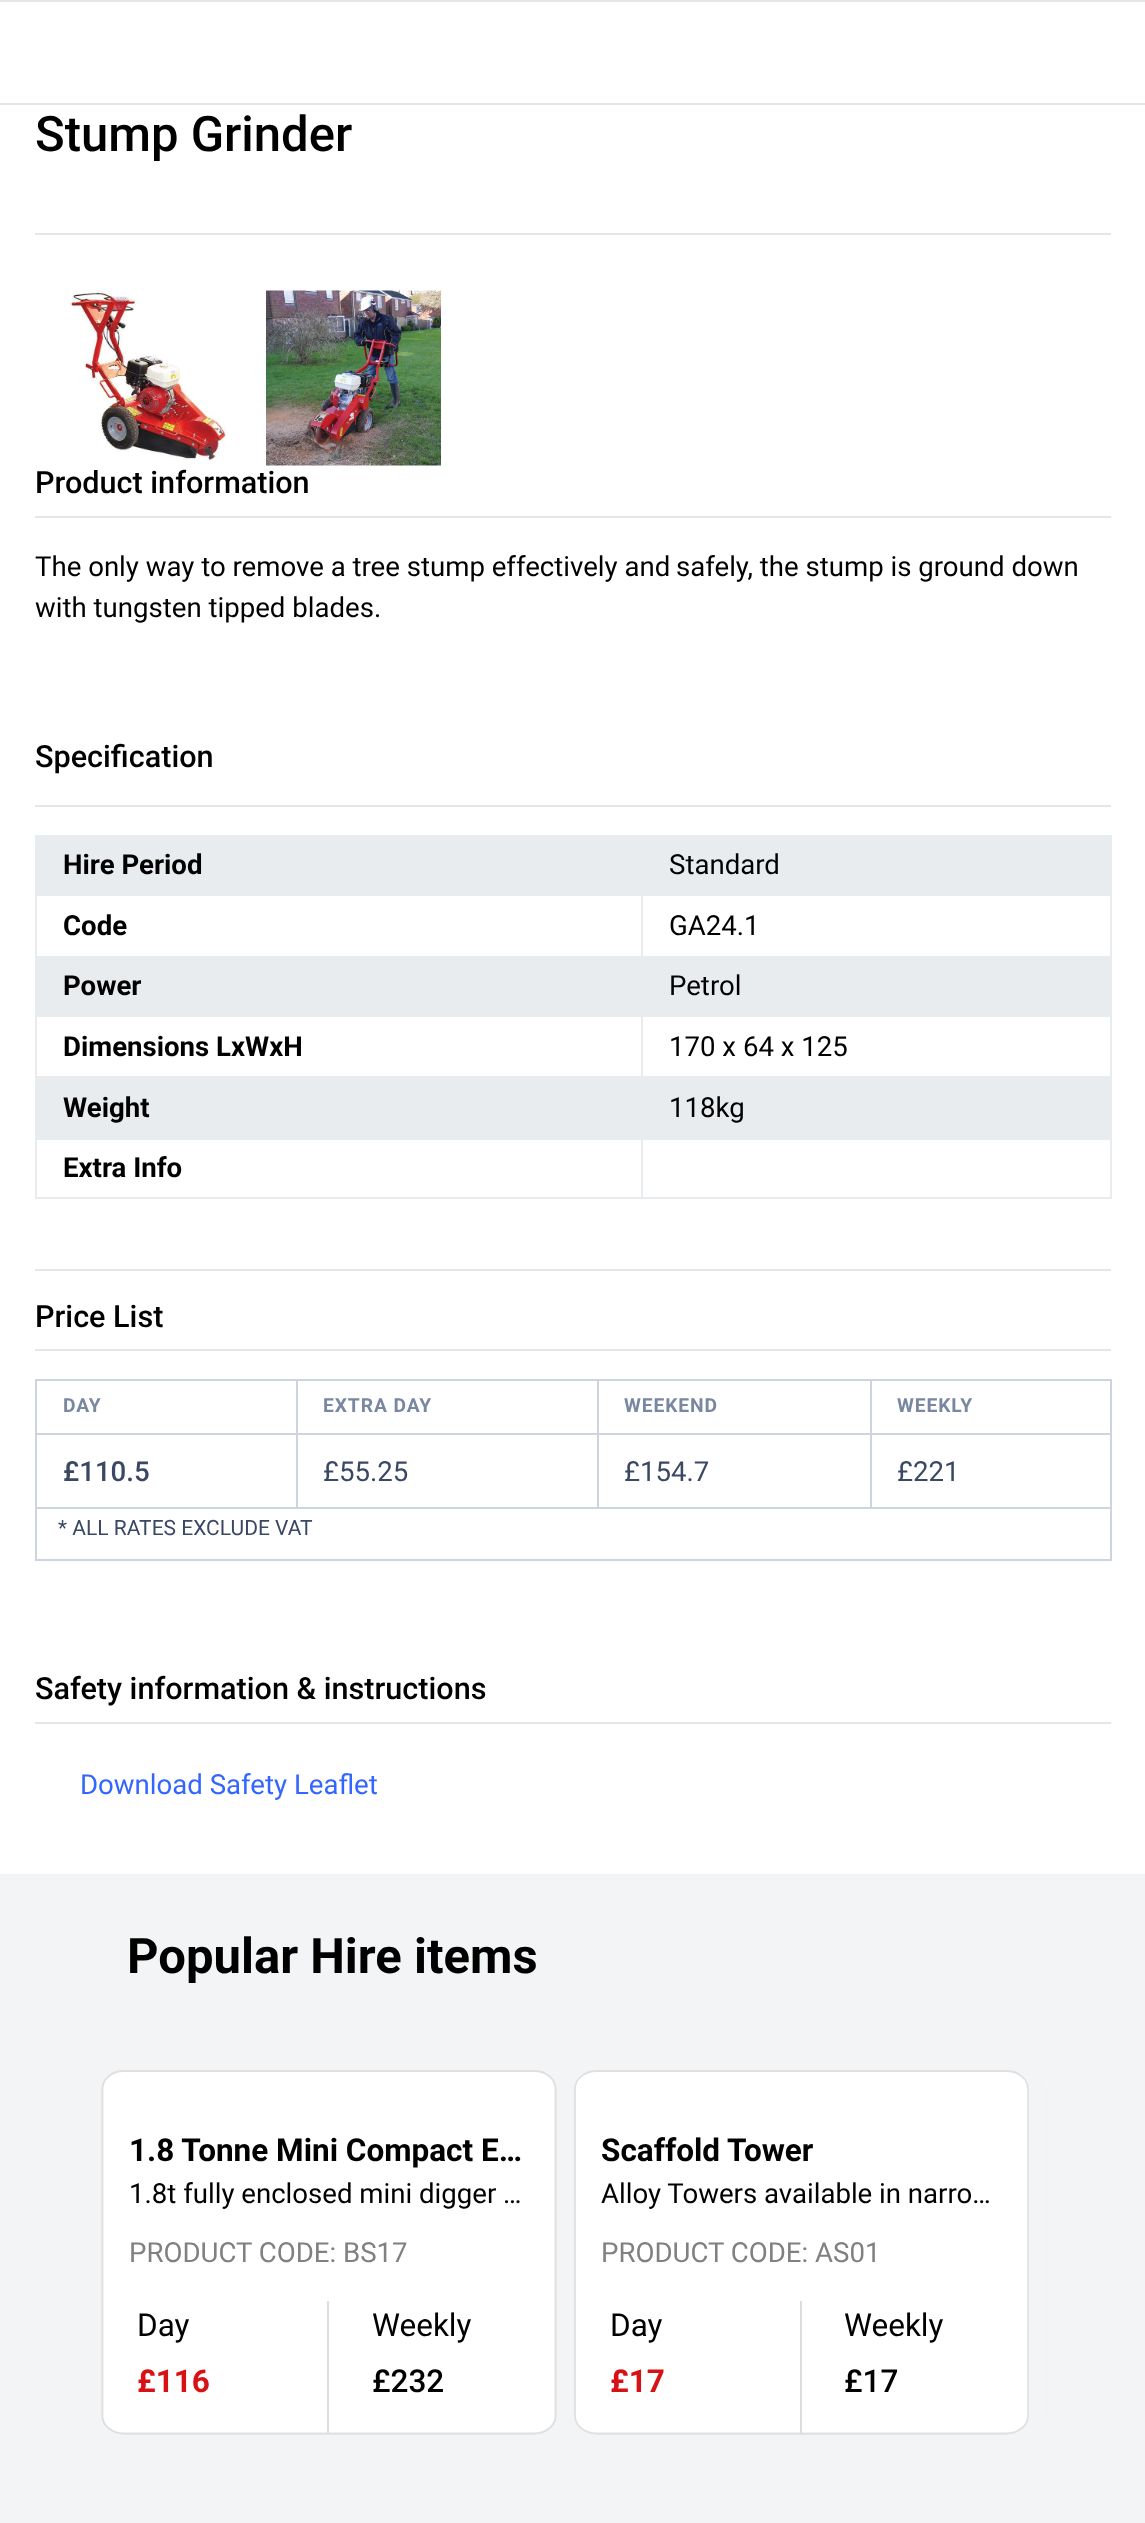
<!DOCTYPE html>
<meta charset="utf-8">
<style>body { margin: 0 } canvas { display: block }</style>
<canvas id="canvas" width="1145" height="2523"></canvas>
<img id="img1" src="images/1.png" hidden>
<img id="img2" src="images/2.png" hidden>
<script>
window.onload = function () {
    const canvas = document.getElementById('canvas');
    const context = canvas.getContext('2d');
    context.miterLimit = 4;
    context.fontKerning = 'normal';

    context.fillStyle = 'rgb(255, 255, 255)';
    context.fillRect(0, 0, 1145, 2523);
    context.fillStyle = 'rgb(228, 229, 232)';
    context.fillRect(0, 0, 1145, 2);
    context.fillRect(0, 103, 1145, 2);
    context.fillStyle = 'rgb(230, 230, 230)';
    context.fillRect(35, 233, 1076, 2);
    context.drawImage(document.getElementById('img1'), 69, 290, 157, 171);
    context.drawImage(document.getElementById('img2'), 266, 290, 175, 176);
    context.fillRect(35, 516, 1076, 2);
    context.fillRect(35, 805, 1076, 2);
    context.fillStyle = 'rgb(233, 236, 239)';
    context.fillRect(35, 835, 1075, 362);
    context.fillStyle = 'rgb(255, 255, 255)';
    context.fillRect(37, 896, 1073, 60);
    context.fillStyle = 'rgb(233, 236, 239)';
    context.fillRect(641, 894, 2, 63);
    context.fillStyle = 'rgb(255, 255, 255)';
    context.fillRect(37, 1017, 1073, 59);
    context.fillStyle = 'rgb(233, 236, 239)';
    context.fillRect(641, 1015, 2, 63);
    context.fillRect(1110, 1076, 1, 2);
    context.fillRect(1110, 1138, 1, 2);
    context.fillRect(1110, 1138, 2, 61);
    context.fillRect(1110, 835, 2, 304);
    context.fillStyle = 'rgb(255, 255, 255)';
    context.fillRect(37, 1140, 1073, 57);
    context.fillStyle = 'rgb(233, 236, 239)';
    context.fillRect(641, 1197, 470, 2);
    context.fillRect(641, 1138, 2, 61);
    context.fillRect(35, 1197, 607, 2);
    context.fillStyle = 'rgb(230, 230, 230)';
    context.fillRect(35, 1269, 1076, 2);
    context.fillRect(35, 1349, 1076, 2);
    context.fillStyle = 'rgb(205, 212, 224)';
    context.fillRect(35, 1379, 1076, 2);
    context.fillRect(1110, 1379, 2, 182);
    context.fillRect(35, 1559, 1076, 2);
    context.fillRect(35, 1379, 2, 182);
    context.fillRect(870, 1433, 241, 2);
    context.fillRect(35, 1507, 1076, 2);
    context.fillRect(870, 1433, 2, 76);
    context.fillRect(597, 1433, 275, 2);
    context.fillRect(597, 1433, 2, 76);
    context.fillRect(296, 1433, 303, 2);
    context.fillRect(296, 1433, 2, 76);
    context.fillRect(35, 1433, 263, 2);
    context.fillRect(296, 1379, 2, 56);
    context.fillRect(597, 1379, 2, 56);
    context.fillRect(870, 1379, 2, 56);
    context.fillStyle = 'rgb(230, 230, 230)';
    context.fillRect(35, 1722, 1076, 2);
    context.fillStyle = 'rgb(243, 244, 246)';
    context.fillRect(0, 1874, 1145, 649);
    context.fillStyle = 'rgb(255, 255, 255)';
    context.beginPath();
    context.moveTo(124, 2070);
    context.lineTo(534, 2070);
    context.bezierCurveTo(546, 2070, 556, 2078, 556, 2088);
    context.lineTo(556, 2416);
    context.bezierCurveTo(556, 2426, 546, 2434, 534, 2434);
    context.lineTo(124, 2434);
    context.bezierCurveTo(112, 2434, 102, 2426, 102, 2416);
    context.lineTo(102, 2088);
    context.bezierCurveTo(102, 2078, 112, 2070, 124, 2070);
    context.closePath();
    context.fill();
    context.beginPath();
    context.moveTo(124, 2071);
    context.lineTo(534, 2071);
    context.bezierCurveTo(546, 2071, 555.5, 2079, 555.5, 2088.5);
    context.lineTo(555.5, 2416);
    context.bezierCurveTo(555.5, 2425.5, 546, 2433.5, 534, 2433.5);
    context.lineTo(124, 2433.5);
    context.bezierCurveTo(112, 2433.5, 102.5, 2425.5, 102.5, 2416);
    context.lineTo(102.5, 2088.5);
    context.bezierCurveTo(102.5, 2079, 112, 2071, 124, 2071);
    context.closePath();
    context.strokeStyle = 'rgba(0, 0, 0, 0.12)';
    context.lineWidth = 1.8;
    context.stroke();
    context.fillStyle = 'rgb(221, 221, 221)';
    context.fillRect(327, 2301, 2, 132);
    context.fillStyle = 'rgb(255, 255, 255)';
    context.beginPath();
    context.moveTo(597, 2070);
    context.lineTo(1006, 2070);
    context.bezierCurveTo(1019, 2070, 1029, 2078, 1029, 2088);
    context.lineTo(1029, 2416);
    context.bezierCurveTo(1029, 2426, 1019, 2434, 1006, 2434);
    context.lineTo(597, 2434);
    context.bezierCurveTo(584, 2434, 574, 2426, 574, 2416);
    context.lineTo(574, 2088);
    context.bezierCurveTo(574, 2078, 584, 2070, 597, 2070);
    context.closePath();
    context.fill();
    context.beginPath();
    context.moveTo(597, 2071);
    context.lineTo(1006, 2071);
    context.bezierCurveTo(1018.5, 2071, 1028, 2079, 1028, 2088.5);
    context.lineTo(1028, 2416);
    context.bezierCurveTo(1028, 2425.5, 1018.5, 2433.5, 1006, 2433.5);
    context.lineTo(597, 2433.5);
    context.bezierCurveTo(584.5, 2433.5, 575, 2425.5, 575, 2416);
    context.lineTo(575, 2088.5);
    context.bezierCurveTo(575, 2079, 584.5, 2071, 597, 2071);
    context.closePath();
    context.stroke();
    context.fillStyle = 'rgb(221, 221, 221)';
    context.fillRect(800, 2301, 2, 132);
    context.save();
    context.beginPath();
    context.rect(102, 2070, 945, 364);
    context.clip();
    context.fillStyle = 'rgb(255, 255, 255)';
    context.beginPath();
    context.moveTo(1069, 2070);
    context.lineTo(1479, 2070);
    context.bezierCurveTo(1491, 2070, 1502, 2078, 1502, 2088);
    context.lineTo(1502, 2416);
    context.bezierCurveTo(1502, 2426, 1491, 2434, 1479, 2434);
    context.lineTo(1069, 2434);
    context.bezierCurveTo(1057, 2434, 1046, 2426, 1046, 2416);
    context.lineTo(1046, 2088);
    context.bezierCurveTo(1046, 2078, 1057, 2070, 1069, 2070);
    context.closePath();
    context.fill();
    context.beginPath();
    context.moveTo(1069, 2071);
    context.lineTo(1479, 2071);
    context.bezierCurveTo(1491, 2071, 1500.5, 2079, 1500.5, 2088.5);
    context.lineTo(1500.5, 2416);
    context.bezierCurveTo(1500.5, 2425.5, 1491, 2433.5, 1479, 2433.5);
    context.lineTo(1069, 2433.5);
    context.bezierCurveTo(1057, 2433.5, 1047.5, 2425.5, 1047.5, 2416);
    context.lineTo(1047.5, 2088.5);
    context.bezierCurveTo(1047.5, 2079, 1057, 2071, 1069, 2071);
    context.closePath();
    context.strokeStyle = 'rgb(223, 223, 223)';
    context.stroke();
    context.restore();
    context.font = '500 49px Roboto';
    context.fillStyle = 'rgb(0, 0, 0)';
    context.fillText('Stump Grinder', 35, 151);
    context.font = '500 30.6px Roboto';
    context.fillText('Product information', 35, 493);
    context.font = '27.6px Roboto';
    context.fillText('The only way to remove a tree stump effectively and', 35, 576);
    context.fillText('safely, the stump is ground down', 676, 576);
    context.fillText('with tungsten tipped blades.', 35, 617);
    context.font = '500 30.6px Roboto';
    context.fillText('Specification', 35, 767);
    context.font = 'bold 27.6px Roboto';
    context.fillText('Hire Period', 63, 874);
    context.font = '27.6px Roboto';
    context.fillText('Standard', 669, 874);
    context.font = 'bold 27.6px Roboto';
    context.fillText('Code', 63, 935);
    context.font = '27.6px Roboto';
    context.fillText('GA24.1', 669, 935);
    context.font = 'bold 27.6px Roboto';
    context.fillText('Power', 63, 995);
    context.font = '27.6px Roboto';
    context.fillText('Petrol', 669, 995);
    context.font = 'bold 27.6px Roboto';
    context.fillText('Dimensions LxWxH', 63, 1056);
    context.font = '27.6px Roboto';
    context.fillText('170 x 64 x 125', 669, 1056);
    context.font = 'bold 27.6px Roboto';
    context.fillText('Weight', 63, 1117);
    context.font = '27.6px Roboto';
    context.fillText('118kg', 669, 1117);
    context.font = 'bold 27.6px Roboto';
    context.fillText('Extra Info', 63, 1177);
    context.font = '500 30.6px Roboto';
    context.fillText('Price List', 35, 1327);
    context.letterSpacing = '0.9px';
    context.font = 'bold 19.25px Roboto';
    context.fillStyle = 'rgb(121, 135, 161)';
    context.fillText('DAY', 63, 1412);
    context.fillText('EXTRA DAY', 323, 1412);
    context.fillText('WEEKEND', 624, 1412);
    context.fillText('WEEKLY', 897, 1412);
    context.letterSpacing = '0px';
    context.font = '500 27.6px Roboto';
    context.fillStyle = 'rgb(59, 72, 99)';
    context.fillText('£110.5', 63, 1481);
    context.font = '27.6px Roboto';
    context.fillText('£55.25', 323, 1481);
    context.fillText('£154.7', 624, 1481);
    context.fillText('£221', 897, 1481);
    context.font = '21px Roboto';
    context.fillText('* ALL RATES EXCLUDE VAT', 58, 1535);
    context.font = '500 30.6px Roboto';
    context.fillStyle = 'rgb(0, 0, 0)';
    context.fillText('Safety information & instructions', 35, 1699);
    context.font = '27.6px Roboto';
    context.fillStyle = 'rgb(51, 102, 255)';
    context.fillText('Download Safety Leaflet', 80, 1794);
    context.font = 'bold 49px Roboto';
    context.fillStyle = 'rgb(0, 0, 0)';
    context.fillText('Popular Hire items', 127, 1973);
    context.font = 'bold 31.5px Roboto';
    context.fillText('1.8 Tonne Mini Compact E…', 129, 2161);
    context.font = '27.6px Roboto';
    context.fillText('1.8t fully enclosed mini digger …', 129, 2203);
    context.fillStyle = 'rgb(128, 128, 128)';
    context.fillText('PRODUCT CODE: BS17', 129, 2262);
    context.font = '31.5px Roboto';
    context.fillStyle = 'rgb(0, 0, 0)';
    context.fillText('Day', 137, 2336);
    context.font = 'bold 31.5px Roboto';
    context.fillStyle = 'rgb(216, 17, 21)';
    context.fillText('£116', 137, 2392);
    context.font = '31.5px Roboto';
    context.fillStyle = 'rgb(0, 0, 0)';
    context.fillText('Weekly', 372, 2336);
    context.font = '500 31.5px Roboto';
    context.fillText('£232', 372, 2392);
    context.font = 'bold 31.5px Roboto';
    context.fillText('Scaffold Tower', 601, 2161);
    context.font = '27.6px Roboto';
    context.fillText('Alloy Towers available in narro…', 601, 2203);
    context.fillStyle = 'rgb(128, 128, 128)';
    context.fillText('PRODUCT CODE: AS01', 601, 2262);
    context.font = '31.5px Roboto';
    context.fillStyle = 'rgb(0, 0, 0)';
    context.fillText('Day', 610, 2336);
    context.font = 'bold 31.5px Roboto';
    context.fillStyle = 'rgb(216, 17, 21)';
    context.fillText('£17', 610, 2392);
    context.font = '31.5px Roboto';
    context.fillStyle = 'rgb(0, 0, 0)';
    context.fillText('Weekly', 844, 2336);
    context.font = '500 31.5px Roboto';
    context.fillText('£17', 844, 2392);
};
</script>
